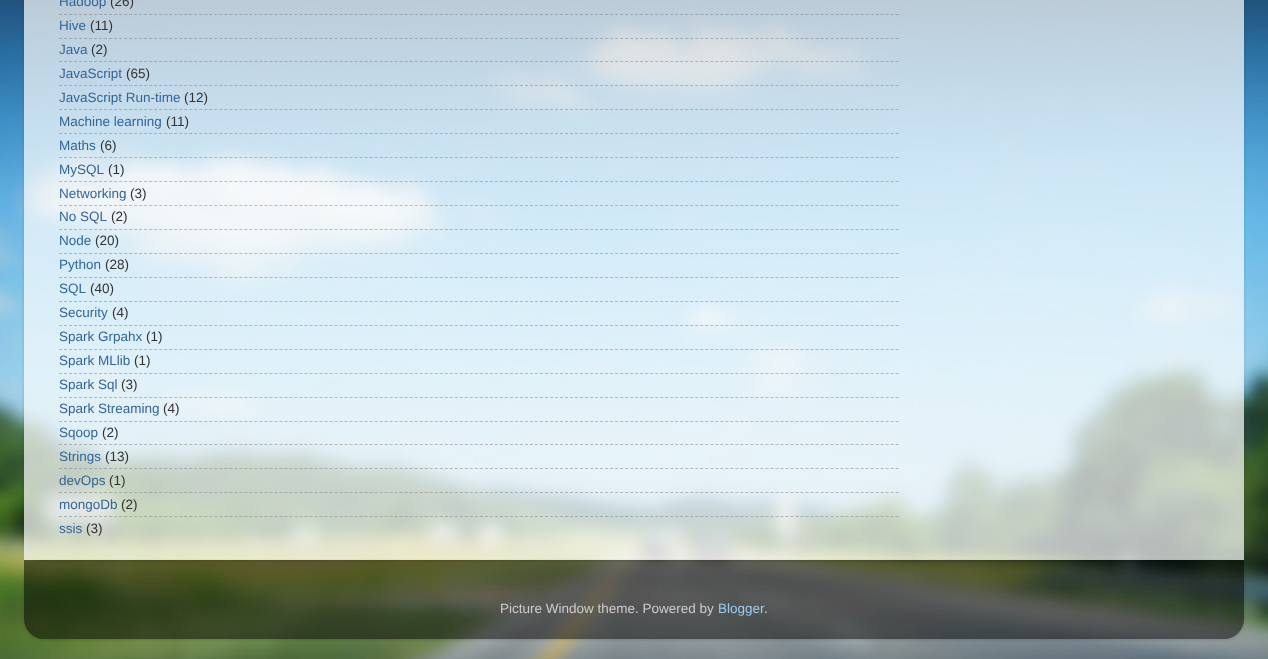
<!DOCTYPE html>
<meta charset="utf-8">
<style>body { margin: 0 } canvas { display: block }</style>
<canvas id="canvas" width="1268" height="659"></canvas>
<img id="img1" src="images/1.png" hidden>
<img id="img2" src="images/2.png" hidden>
<script>
window.onload = function () {
    const canvas = document.getElementById('canvas');
    const context = canvas.getContext('2d');
    context.miterLimit = 4;
    context.fontKerning = 'normal';

    context.fillStyle = 'rgb(255, 255, 255)';
    context.fillRect(0, 0, 1268, 659);
    context.drawImage(document.getElementById('img1'), 0, 0, 1268, 659);
    context.save();
    context.beginPath();
    context.moveTo(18, 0);
    context.lineTo(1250, 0);
    context.lineTo(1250, 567);
    context.lineTo(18, 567);
    context.closePath();
    context.moveTo(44, -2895);
    context.lineTo(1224, -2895);
    context.bezierCurveTo(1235, -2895, 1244, -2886, 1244, -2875);
    context.lineTo(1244, 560);
    context.lineTo(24, 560);
    context.lineTo(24, -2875);
    context.bezierCurveTo(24, -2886, 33, -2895, 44, -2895);
    context.closePath();
    context.clip('evenodd');
    context.fillStyle = 'rgba(0, 0, 0, 0.15)';
    context.filter = 'blur(1.5px)';
    context.beginPath();
    context.roundRect(24, -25, 1220, 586, 20);
    context.fill();
    context.filter = 'none';
    context.restore();
    context.fillStyle = 'rgba(255, 255, 255, 0.7)';
    context.fillRect(24, 0, 1220, 560);
    context.beginPath();
    context.moveTo(59, 14.5);
    context.lineTo(899, 14.5);
    context.strokeStyle = 'rgba(128, 128, 128, 0.5)';
    context.setLineDash([3, 2.01]);
    context.stroke();
    context.beginPath();
    context.moveTo(59, 38.5);
    context.lineTo(899, 38.5);
    context.stroke();
    context.beginPath();
    context.moveTo(59, 61.5);
    context.lineTo(899, 61.5);
    context.stroke();
    context.beginPath();
    context.moveTo(59, 85.5);
    context.lineTo(899, 85.5);
    context.stroke();
    context.beginPath();
    context.moveTo(59, 109.5);
    context.lineTo(899, 109.5);
    context.stroke();
    context.beginPath();
    context.moveTo(59, 133.5);
    context.lineTo(899, 133.5);
    context.stroke();
    context.beginPath();
    context.moveTo(59, 157.5);
    context.lineTo(899, 157.5);
    context.stroke();
    context.beginPath();
    context.moveTo(59, 181.5);
    context.lineTo(899, 181.5);
    context.stroke();
    context.beginPath();
    context.moveTo(59, 205.5);
    context.lineTo(899, 205.5);
    context.stroke();
    context.beginPath();
    context.moveTo(59, 229.5);
    context.lineTo(899, 229.5);
    context.stroke();
    context.beginPath();
    context.moveTo(59, 253.5);
    context.lineTo(899, 253.5);
    context.stroke();
    context.beginPath();
    context.moveTo(59, 277.5);
    context.lineTo(899, 277.5);
    context.stroke();
    context.beginPath();
    context.moveTo(59, 301.5);
    context.lineTo(899, 301.5);
    context.stroke();
    context.beginPath();
    context.moveTo(59, 325.5);
    context.lineTo(899, 325.5);
    context.stroke();
    context.beginPath();
    context.moveTo(59, 349.5);
    context.lineTo(899, 349.5);
    context.stroke();
    context.beginPath();
    context.moveTo(59, 373.5);
    context.lineTo(899, 373.5);
    context.stroke();
    context.beginPath();
    context.moveTo(59, 397.5);
    context.lineTo(899, 397.5);
    context.stroke();
    context.beginPath();
    context.moveTo(59, 421.5);
    context.lineTo(899, 421.5);
    context.stroke();
    context.beginPath();
    context.moveTo(59, 444.5);
    context.lineTo(899, 444.5);
    context.stroke();
    context.beginPath();
    context.moveTo(59, 468.5);
    context.lineTo(899, 468.5);
    context.stroke();
    context.beginPath();
    context.moveTo(59, 492.5);
    context.lineTo(899, 492.5);
    context.stroke();
    context.beginPath();
    context.moveTo(59, 516.5);
    context.lineTo(899, 516.5);
    context.stroke();
    context.save();
    context.beginPath();
    context.moveTo(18, 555);
    context.lineTo(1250, 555);
    context.lineTo(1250, 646);
    context.lineTo(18, 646);
    context.closePath();
    context.moveTo(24, 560);
    context.lineTo(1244, 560);
    context.lineTo(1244, 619);
    context.bezierCurveTo(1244, 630, 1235, 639, 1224, 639);
    context.lineTo(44, 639);
    context.bezierCurveTo(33, 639, 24, 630, 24, 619);
    context.closePath();
    context.clip('evenodd');
    context.fillStyle = 'rgba(0, 0, 0, 0.15)';
    context.filter = 'blur(1.5px)';
    context.beginPath();
    context.roundRect(24, 561, 1220, 79, 20);
    context.fill();
    context.filter = 'none';
    context.restore();
    context.drawImage(document.getElementById('img2'), 24, 560, 1220, 79);
    context.font = '13.5px Liberation Sans';
    context.fillStyle = 'rgb(51, 102, 153)';
    context.fillText('Hadoop', 59, 6);
    context.fillStyle = 'rgb(51, 51, 51)';
    context.fillText('(26)', 110, 6);
    context.fillStyle = 'rgb(51, 102, 153)';
    context.fillText('Hive', 59, 30);
    context.fillStyle = 'rgb(51, 51, 51)';
    context.fillText('(11)', 90, 30);
    context.fillStyle = 'rgb(51, 102, 153)';
    context.fillText('Java', 59, 54);
    context.fillStyle = 'rgb(51, 51, 51)';
    context.fillText('(2)', 91, 54);
    context.fillStyle = 'rgb(51, 102, 153)';
    context.fillText('JavaScript', 59, 78);
    context.fillStyle = 'rgb(51, 51, 51)';
    context.fillText('(65)', 126, 78);
    context.fillStyle = 'rgb(51, 102, 153)';
    context.fillText('JavaScript Run-time', 59, 102);
    context.fillStyle = 'rgb(51, 51, 51)';
    context.fillText('(12)', 184, 102);
    context.fillStyle = 'rgb(51, 102, 153)';
    context.fillText('Machine learning', 59, 126);
    context.fillStyle = 'rgb(51, 51, 51)';
    context.fillText('(11)', 166, 126);
    context.fillStyle = 'rgb(51, 102, 153)';
    context.fillText('Maths', 59, 150);
    context.fillStyle = 'rgb(51, 51, 51)';
    context.fillText('(6)', 100, 150);
    context.fillStyle = 'rgb(51, 102, 153)';
    context.fillText('MySQL', 59, 174);
    context.fillStyle = 'rgb(51, 51, 51)';
    context.fillText('(1)', 108, 174);
    context.fillStyle = 'rgb(51, 102, 153)';
    context.fillText('Networking', 59, 198);
    context.fillStyle = 'rgb(51, 51, 51)';
    context.fillText('(3)', 130, 198);
    context.fillStyle = 'rgb(51, 102, 153)';
    context.fillText('No SQL', 59, 221);
    context.fillStyle = 'rgb(51, 51, 51)';
    context.fillText('(2)', 111, 221);
    context.fillStyle = 'rgb(51, 102, 153)';
    context.fillText('Node', 59, 245);
    context.fillStyle = 'rgb(51, 51, 51)';
    context.fillText('(20)', 95, 245);
    context.fillStyle = 'rgb(51, 102, 153)';
    context.fillText('Python', 59, 269);
    context.fillStyle = 'rgb(51, 51, 51)';
    context.fillText('(28)', 105, 269);
    context.fillStyle = 'rgb(51, 102, 153)';
    context.fillText('SQL', 59, 293);
    context.fillStyle = 'rgb(51, 51, 51)';
    context.fillText('(40)', 90, 293);
    context.fillStyle = 'rgb(51, 102, 153)';
    context.fillText('Security', 59, 317);
    context.fillStyle = 'rgb(51, 51, 51)';
    context.fillText('(4)', 112, 317);
    context.fillStyle = 'rgb(51, 102, 153)';
    context.fillText('Spark Grpahx', 59, 341);
    context.fillStyle = 'rgb(51, 51, 51)';
    context.fillText('(1)', 146, 341);
    context.fillStyle = 'rgb(51, 102, 153)';
    context.fillText('Spark MLlib', 59, 365);
    context.fillStyle = 'rgb(51, 51, 51)';
    context.fillText('(1)', 134, 365);
    context.fillStyle = 'rgb(51, 102, 153)';
    context.fillText('Spark Sql', 59, 389);
    context.fillStyle = 'rgb(51, 51, 51)';
    context.fillText('(3)', 121, 389);
    context.fillStyle = 'rgb(51, 102, 153)';
    context.fillText('Spark Streaming', 59, 413);
    context.fillStyle = 'rgb(51, 51, 51)';
    context.fillText('(4)', 163, 413);
    context.fillStyle = 'rgb(51, 102, 153)';
    context.fillText('Sqoop', 59, 437);
    context.fillStyle = 'rgb(51, 51, 51)';
    context.fillText('(2)', 102, 437);
    context.fillStyle = 'rgb(51, 102, 153)';
    context.fillText('Strings', 59, 461);
    context.fillStyle = 'rgb(51, 51, 51)';
    context.fillText('(13)', 105, 461);
    context.fillStyle = 'rgb(51, 102, 153)';
    context.fillText('devOps', 59, 485);
    context.fillStyle = 'rgb(51, 51, 51)';
    context.fillText('(1)', 109, 485);
    context.fillStyle = 'rgb(51, 102, 153)';
    context.fillText('mongoDb', 59, 509);
    context.fillStyle = 'rgb(51, 51, 51)';
    context.fillText('(2)', 121, 509);
    context.fillStyle = 'rgb(51, 102, 153)';
    context.fillText('ssis', 59, 533);
    context.fillStyle = 'rgb(51, 51, 51)';
    context.fillText('(3)', 86, 533);
    context.fillStyle = 'rgb(204, 204, 204)';
    context.fillText('Picture Window theme. Powered by', 500, 613);
    context.fillStyle = 'rgb(153, 204, 238)';
    context.fillText('Blogger', 718, 613);
    context.fillStyle = 'rgb(204, 204, 204)';
    context.fillText('.', 764, 613);
};
</script>
